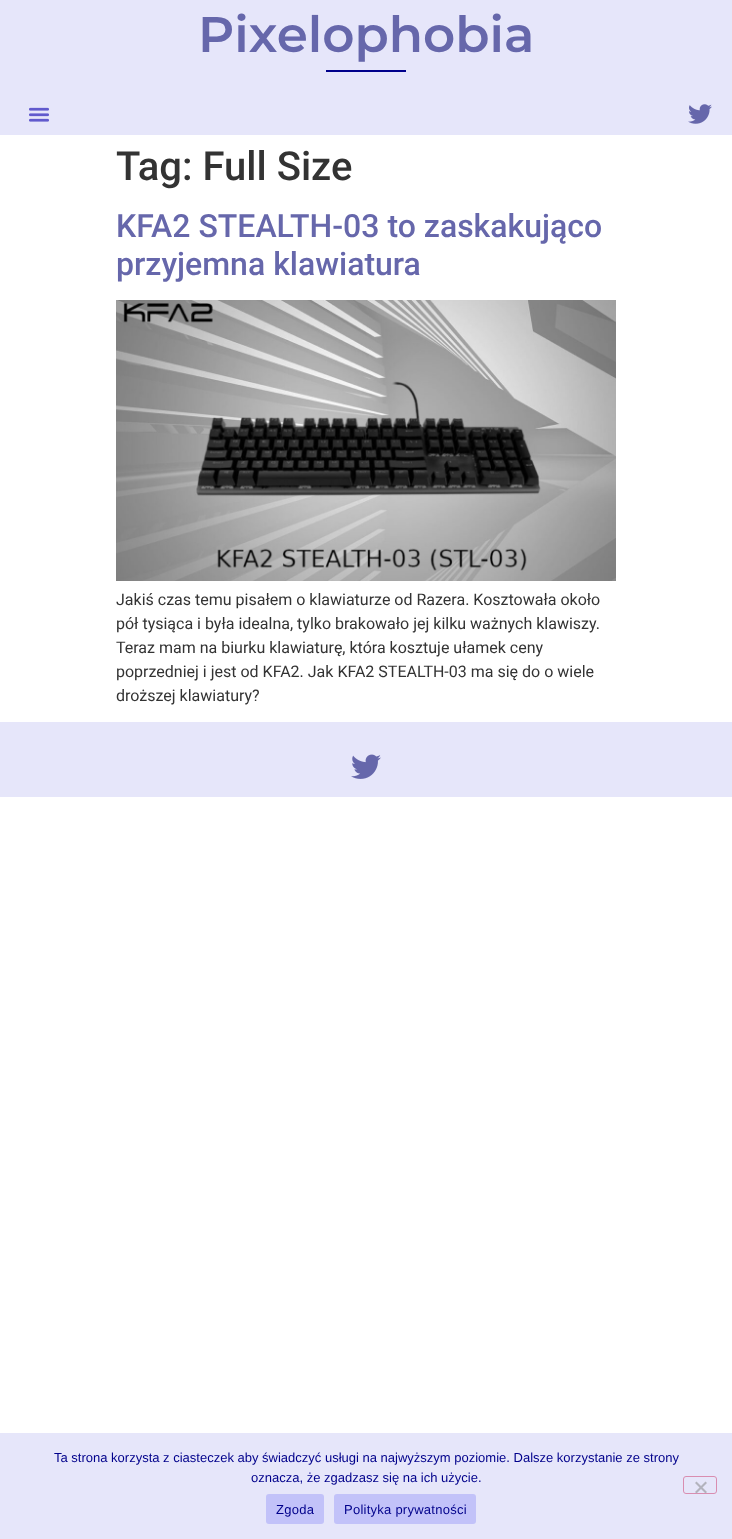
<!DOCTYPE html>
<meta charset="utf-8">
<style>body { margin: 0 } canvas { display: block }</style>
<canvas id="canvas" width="732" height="1539"></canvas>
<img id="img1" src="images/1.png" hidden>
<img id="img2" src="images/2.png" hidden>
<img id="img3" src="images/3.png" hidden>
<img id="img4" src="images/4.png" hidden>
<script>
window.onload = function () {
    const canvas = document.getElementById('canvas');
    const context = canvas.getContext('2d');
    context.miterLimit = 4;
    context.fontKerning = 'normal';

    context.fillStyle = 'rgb(255, 255, 255)';
    context.fillRect(0, 0, 732, 1539);
    context.fillStyle = 'rgb(230, 230, 250)';
    context.fillRect(0, 0, 732, 135);
    context.fillStyle = 'rgb(0, 0, 139)';
    context.fillRect(326, 70, 80, 2);
    context.drawImage(document.getElementById('img1'), 29, 107, 20, 15);
    context.drawImage(document.getElementById('img2'), 688, 104, 24, 20);
    context.drawImage(document.getElementById('img3'), 116, 300, 500, 281);
    context.fillStyle = 'rgb(230, 230, 250)';
    context.fillRect(0, 722, 732, 75);
    context.drawImage(document.getElementById('img4'), 351, 754, 30, 25);
    context.fillRect(0, 1433, 732, 106);
    context.beginPath();
    context.roundRect(683.5, 1476.5, 33, 17, 2.5);
    context.strokeStyle = 'rgb(217, 141, 176)';
    context.stroke();
    context.fillStyle = 'rgb(179, 179, 189)';
    context.beginPath();
    context.moveTo(705.5, 1481.5);
    context.lineTo(707, 1483);
    context.lineTo(696.5, 1493.5);
    context.lineTo(695, 1492);
    context.closePath();
    context.fill();
    context.beginPath();
    context.moveTo(695, 1483);
    context.lineTo(696.5, 1481.5);
    context.lineTo(707, 1492);
    context.lineTo(705.5, 1493.5);
    context.closePath();
    context.fill();
    context.fillStyle = 'rgb(194, 194, 249)';
    context.beginPath();
    context.roundRect(266, 1494, 58, 30, 3);
    context.fill();
    context.beginPath();
    context.roundRect(334, 1494, 142, 30, 3);
    context.fill();
    context.font = '600 50px Montserrat';
    context.fillStyle = 'rgb(102, 103, 171)';
    context.fillText('Pixelophobia', 198, 52);
    context.font = '500 40px Roboto';
    context.fillStyle = 'rgb(51, 51, 51)';
    context.fillText('Tag: Full Size', 116, 180);
    context.font = '500 32px Roboto';
    context.fillStyle = 'rgb(102, 103, 171)';
    context.fillText('KFA2 STEALTH-03 to zaskakująco', 116, 237);
    context.fillText('przyjemna klawiatura', 116, 275);
    context.font = '16px Roboto';
    context.fillStyle = 'rgb(51, 51, 51)';
    context.fillText('Jakiś czas temu pisałem o klawiaturze od Razera. Kosztowała około', 116, 605);
    context.fillText('pół tysiąca i była idealna, tylko brakowało jej kilku ważnych klawiszy.', 116, 629);
    context.fillText('Teraz mam na biurku klawiaturę, która kosztuje ułamek ceny', 116, 653);
    context.fillText('poprzedniej i jest od KFA2. Jak KFA2 STEALTH-03 ma się do o wiele', 116, 677);
    context.fillText('droższej klawiatury?', 116, 701);
    context.font = '13px Liberation Sans';
    context.fillStyle = 'rgb(0, 0, 139)';
    context.fillText('Ta strona korzysta z ciasteczek aby świadczyć usługi na najwyższym poziomie. Dalsze korzystanie ze strony', 54, 1462);
    context.fillText('oznacza, że zgadzasz się na ich użycie.', 251, 1482);
    context.letterSpacing = '0.25px';
    context.fillText('Zgoda', 276, 1514);
    context.fillText('Polityka prywatności', 344, 1514);
};
</script>
